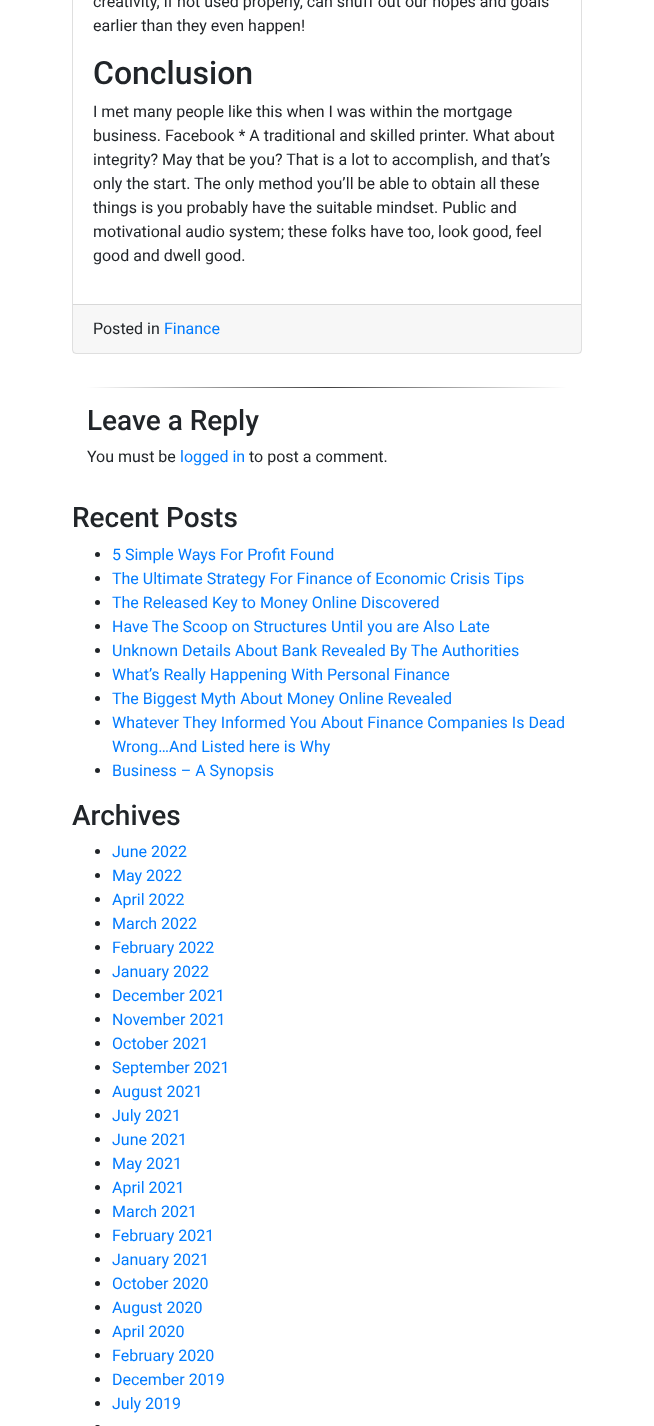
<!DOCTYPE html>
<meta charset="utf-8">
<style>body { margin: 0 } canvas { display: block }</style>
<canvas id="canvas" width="654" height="1426"></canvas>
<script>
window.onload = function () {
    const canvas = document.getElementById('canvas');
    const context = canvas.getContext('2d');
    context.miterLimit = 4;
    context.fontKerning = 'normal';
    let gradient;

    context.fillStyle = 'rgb(255, 255, 255)';
    context.fillRect(0, 0, 654, 1426);
    context.beginPath();
    context.roundRect(72.5, -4.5, 509, 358, 3.5);
    context.strokeStyle = 'rgb(223, 223, 223)';
    context.stroke();
    context.fillStyle = 'rgba(0, 0, 0, 0.03)';
    context.fillRect(73, 305, 508, 48);
    context.fillStyle = 'rgb(216, 216, 216)';
    context.fillRect(73, 304, 508, 1);
    gradient = context.createLinearGradient(87, 388, 567, 388);
    gradient.addColorStop(0, 'rgb(255, 255, 255)');
    gradient.addColorStop(0.5, 'rgb(64, 64, 64)');
    gradient.addColorStop(1, 'rgb(255, 255, 255)');
    context.fillStyle = gradient;
    context.fillRect(87, 387, 480, 1);
    context.fillStyle = 'rgb(33, 37, 41)';
    context.beginPath();
    context.arc(97.5, 554.5, 2.5, 0, 2 * Math.PI);
    context.fill();
    context.beginPath();
    context.arc(97.5, 578.5, 2.5, 0, 2 * Math.PI);
    context.fill();
    context.beginPath();
    context.arc(97.5, 602.5, 2.5, 0, 2 * Math.PI);
    context.fill();
    context.beginPath();
    context.arc(97.5, 626.5, 2.5, 0, 2 * Math.PI);
    context.fill();
    context.beginPath();
    context.arc(97.5, 650.5, 2.5, 0, 2 * Math.PI);
    context.fill();
    context.beginPath();
    context.arc(97.5, 674.5, 2.5, 0, 2 * Math.PI);
    context.fill();
    context.beginPath();
    context.arc(97.5, 698.5, 2.5, 0, 2 * Math.PI);
    context.fill();
    context.beginPath();
    context.arc(97.5, 722.5, 2.5, 0, 2 * Math.PI);
    context.fill();
    context.beginPath();
    context.arc(97.5, 770.5, 2.5, 0, 2 * Math.PI);
    context.fill();
    context.beginPath();
    context.arc(97.5, 851.5, 2.5, 0, 2 * Math.PI);
    context.fill();
    context.beginPath();
    context.arc(97.5, 875.5, 2.5, 0, 2 * Math.PI);
    context.fill();
    context.beginPath();
    context.arc(97.5, 899.5, 2.5, 0, 2 * Math.PI);
    context.fill();
    context.beginPath();
    context.arc(97.5, 923.5, 2.5, 0, 2 * Math.PI);
    context.fill();
    context.beginPath();
    context.arc(97.5, 947.5, 2.5, 0, 2 * Math.PI);
    context.fill();
    context.beginPath();
    context.arc(97.5, 971.5, 2.5, 0, 2 * Math.PI);
    context.fill();
    context.beginPath();
    context.arc(97.5, 995.5, 2.5, 0, 2 * Math.PI);
    context.fill();
    context.beginPath();
    context.arc(97.5, 1019.5, 2.5, 0, 2 * Math.PI);
    context.fill();
    context.beginPath();
    context.arc(97.5, 1043.5, 2.5, 0, 2 * Math.PI);
    context.fill();
    context.beginPath();
    context.arc(97.5, 1067.5, 2.5, 0, 2 * Math.PI);
    context.fill();
    context.beginPath();
    context.arc(97.5, 1091.5, 2.5, 0, 2 * Math.PI);
    context.fill();
    context.beginPath();
    context.arc(97.5, 1115.5, 2.5, 0, 2 * Math.PI);
    context.fill();
    context.beginPath();
    context.arc(97.5, 1139.5, 2.5, 0, 2 * Math.PI);
    context.fill();
    context.beginPath();
    context.arc(97.5, 1163.5, 2.5, 0, 2 * Math.PI);
    context.fill();
    context.beginPath();
    context.arc(97.5, 1187.5, 2.5, 0, 2 * Math.PI);
    context.fill();
    context.beginPath();
    context.arc(97.5, 1211.5, 2.5, 0, 2 * Math.PI);
    context.fill();
    context.beginPath();
    context.arc(97.5, 1235.5, 2.5, 0, 2 * Math.PI);
    context.fill();
    context.beginPath();
    context.arc(97.5, 1259.5, 2.5, 0, 2 * Math.PI);
    context.fill();
    context.beginPath();
    context.arc(97.5, 1283.5, 2.5, 0, 2 * Math.PI);
    context.fill();
    context.beginPath();
    context.arc(97.5, 1307.5, 2.5, 0, 2 * Math.PI);
    context.fill();
    context.beginPath();
    context.arc(97.5, 1331.5, 2.5, 0, 2 * Math.PI);
    context.fill();
    context.beginPath();
    context.arc(97.5, 1355.5, 2.5, 0, 2 * Math.PI);
    context.fill();
    context.beginPath();
    context.arc(97.5, 1379.5, 2.5, 0, 2 * Math.PI);
    context.fill();
    context.beginPath();
    context.arc(97.5, 1403.5, 2.5, 0, 2 * Math.PI);
    context.fill();
    context.beginPath();
    context.roundRect(95, 1425, 5, 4, 2.5);
    context.fill();
    context.font = '16px Roboto';
    context.fillText('creativity, if not used properly, can snuff out our hopes and goals', 93, 7);
    context.fillText('earlier than they even happen!', 93, 31);
    context.font = '500 32px Roboto';
    context.fillText('Conclusion', 93, 84);
    context.font = '16px Roboto';
    context.fillText('I met many people like this when I was within the mortgage', 93, 117);
    context.fillText('business. Facebook * A traditional and skilled printer. What about', 93, 141);
    context.fillText('integrity? May that be you? That is a lot to accomplish, and that’s', 93, 165);
    context.fillText('only the start. The only method you’ll be able to obtain all these', 93, 189);
    context.fillText('things is you probably have the suitable mindset. Public and', 93, 213);
    context.fillText('motivational audio system; these folks have too, look good, feel', 93, 237);
    context.fillText('good and dwell good.', 93, 261);
    context.fillText('Posted in', 93, 334);
    context.fillStyle = 'rgb(0, 123, 255)';
    context.fillText('Finance', 164, 334);
    context.font = '500 28px Roboto';
    context.fillStyle = 'rgb(33, 37, 41)';
    context.fillText('Leave a Reply', 87, 430);
    context.font = '16px Roboto';
    context.fillText('You must be', 87, 462);
    context.fillStyle = 'rgb(0, 123, 255)';
    context.fillText('logged in', 180, 462);
    context.fillStyle = 'rgb(33, 37, 41)';
    context.fillText('to post a comment.', 249, 462);
    context.font = '500 28px Roboto';
    context.fillText('Recent Posts', 72, 527);
    context.font = '16px Roboto';
    context.fillStyle = 'rgb(0, 123, 255)';
    context.fillText('5 Simple Ways For Profit Found', 112, 560);
    context.fillText('The Ultimate Strategy For Finance of Economic Crisis Tips', 112, 584);
    context.fillText('The Released Key to Money Online Discovered', 112, 608);
    context.fillText('Have The Scoop on Structures Until you are Also Late', 112, 632);
    context.fillText('Unknown Details About Bank Revealed By The Authorities', 112, 656);
    context.fillText('What’s Really Happening With Personal Finance', 112, 680);
    context.fillText('The Biggest Myth About Money Online Revealed', 112, 704);
    context.fillText('Whatever They Informed You About Finance Companies Is Dead', 112, 728);
    context.fillText('Wrong…And Listed here is Why', 112, 752);
    context.fillText('Business – A Synopsis', 112, 776);
    context.font = '500 28px Roboto';
    context.fillStyle = 'rgb(33, 37, 41)';
    context.fillText('Archives', 72, 825);
    context.font = '16px Roboto';
    context.fillStyle = 'rgb(0, 123, 255)';
    context.fillText('June 2022', 112, 857);
    context.fillText('May 2022', 112, 881);
    context.fillText('April 2022', 112, 905);
    context.fillText('March 2022', 112, 929);
    context.fillText('February 2022', 112, 953);
    context.fillText('January 2022', 112, 977);
    context.fillText('December 2021', 112, 1001);
    context.fillText('November 2021', 112, 1025);
    context.fillText('October 2021', 112, 1049);
    context.fillText('September 2021', 112, 1073);
    context.fillText('August 2021', 112, 1097);
    context.fillText('July 2021', 112, 1121);
    context.fillText('June 2021', 112, 1145);
    context.fillText('May 2021', 112, 1169);
    context.fillText('April 2021', 112, 1193);
    context.fillText('March 2021', 112, 1217);
    context.fillText('February 2021', 112, 1241);
    context.fillText('January 2021', 112, 1265);
    context.fillText('October 2020', 112, 1289);
    context.fillText('August 2020', 112, 1313);
    context.fillText('April 2020', 112, 1337);
    context.fillText('February 2020', 112, 1361);
    context.fillText('December 2019', 112, 1385);
    context.fillText('July 2019', 112, 1409);
};
</script>
